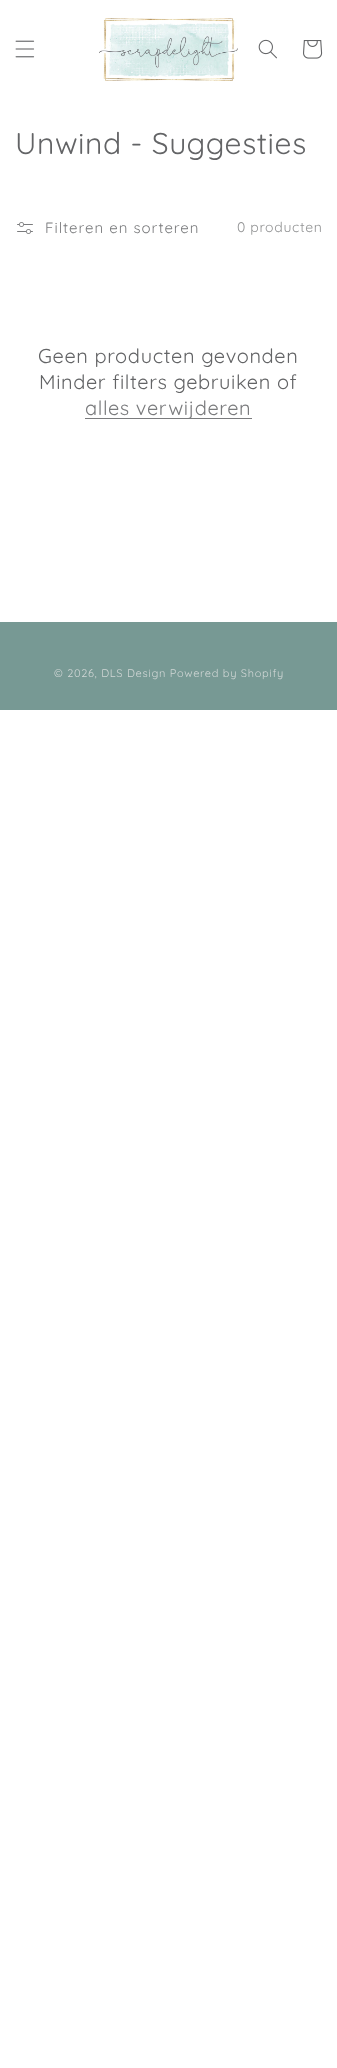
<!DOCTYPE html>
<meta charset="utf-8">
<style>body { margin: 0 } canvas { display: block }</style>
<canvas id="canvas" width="337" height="2068"></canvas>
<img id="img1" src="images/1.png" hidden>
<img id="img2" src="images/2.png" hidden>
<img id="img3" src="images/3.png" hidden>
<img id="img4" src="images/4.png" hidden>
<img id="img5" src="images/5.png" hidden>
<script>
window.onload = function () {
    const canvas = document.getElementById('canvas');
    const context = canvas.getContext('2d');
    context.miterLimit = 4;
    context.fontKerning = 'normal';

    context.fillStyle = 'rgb(255, 255, 255)';
    context.fillRect(0, 0, 337, 2068);
    context.drawImage(document.getElementById('img1'), 15, 40, 20, 18);
    context.drawImage(document.getElementById('img2'), 99, 18, 139, 63);
    context.drawImage(document.getElementById('img3'), 258, 39, 19, 20);
    context.drawImage(document.getElementById('img4'), 303, 40, 20, 19);
    context.drawImage(document.getElementById('img5'), 17, 222, 16, 12);
    context.fillStyle = 'rgb(122, 123, 125)';
    context.fillRect(85, 418, 167, 1);
    context.fillStyle = 'rgb(119, 153, 148)';
    context.fillRect(0, 622, 337, 88);
    context.letterSpacing = '0.6px';
    context.font = '30px Quicksand';
    context.fillStyle = 'rgb(99, 100, 102)';
    context.fillText('Unwind - Suggesties', 15, 154);
    context.letterSpacing = '1px';
    context.font = '15px Quicksand';
    context.fillStyle = 'rgb(122, 123, 125)';
    context.fillText('Filteren en sorteren', 45, 233);
    context.letterSpacing = '0.6px';
    context.font = '14px Quicksand';
    context.fillStyle = 'rgb(146, 147, 148)';
    context.fillText('0 producten', 237, 232);
    context.font = '20px Quicksand';
    context.fillStyle = 'rgb(99, 100, 102)';
    context.fillText('Geen producten gevonden', 38, 363);
    context.fillText('Minder filters gebruiken of', 39, 389);
    context.fillStyle = 'rgb(122, 123, 125)';
    context.fillText('alles verwijderen', 85, 415);
    context.letterSpacing = '0.7px';
    context.font = '11px Quicksand';
    context.fillStyle = 'rgb(209, 215, 214)';
    context.fillText('© 2026, DLS Design Powered by Shopify', 54, 677);
};
</script>
